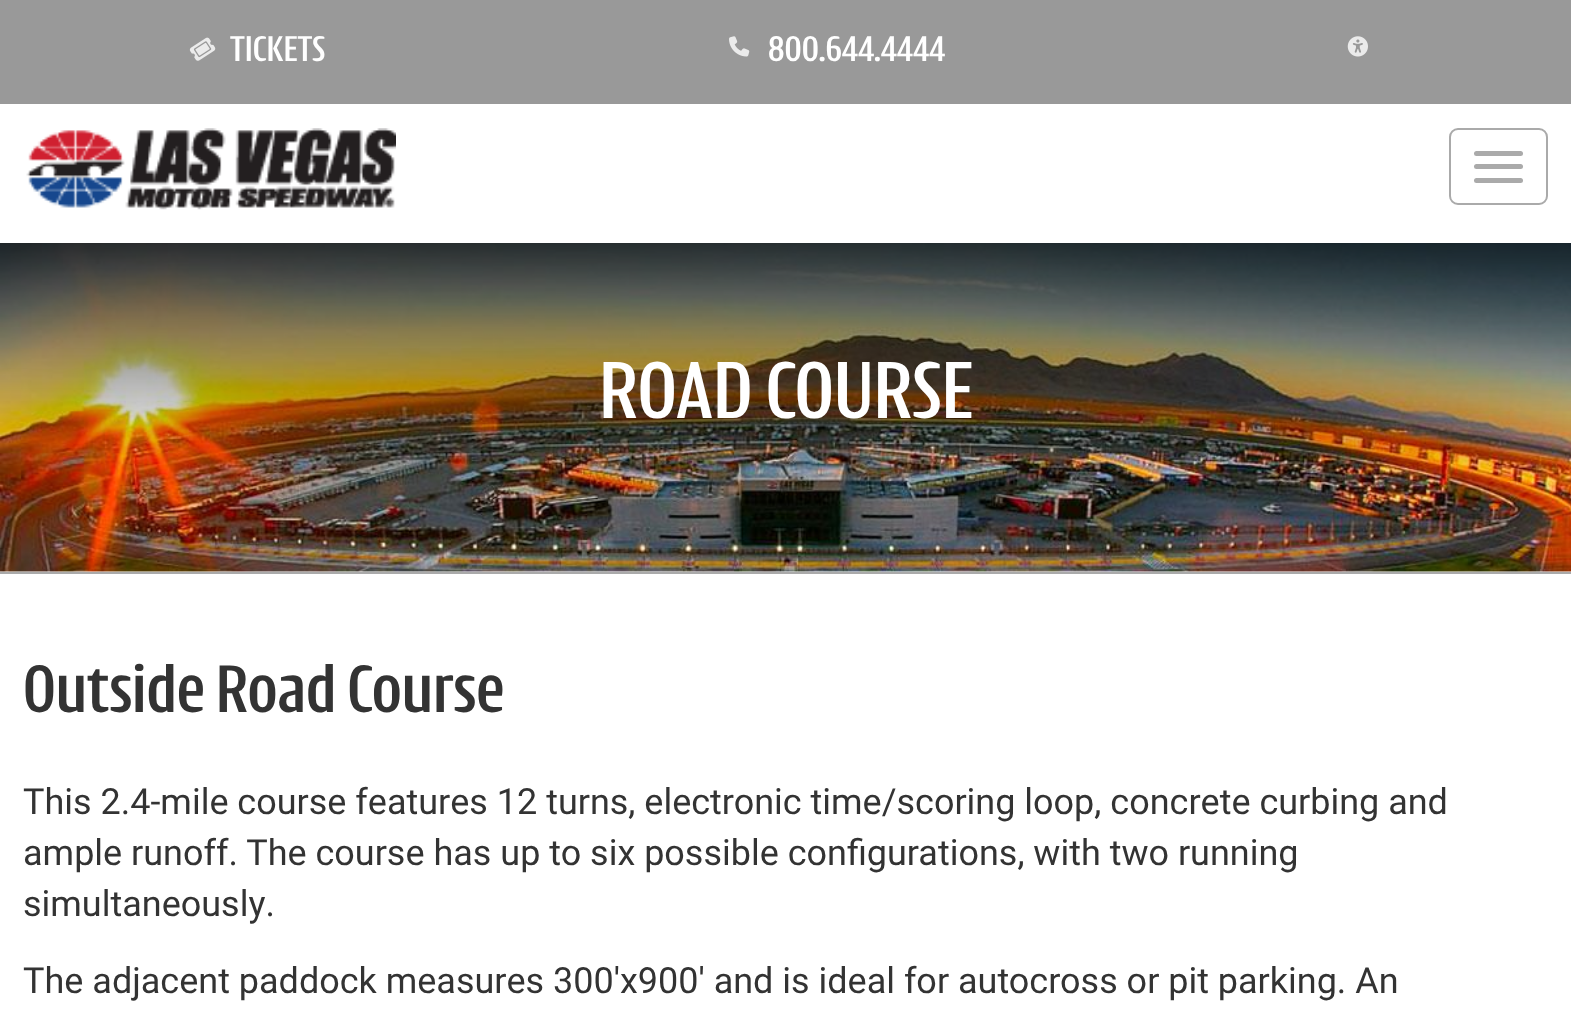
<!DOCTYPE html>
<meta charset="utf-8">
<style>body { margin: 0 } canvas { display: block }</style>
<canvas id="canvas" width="1571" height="1018"></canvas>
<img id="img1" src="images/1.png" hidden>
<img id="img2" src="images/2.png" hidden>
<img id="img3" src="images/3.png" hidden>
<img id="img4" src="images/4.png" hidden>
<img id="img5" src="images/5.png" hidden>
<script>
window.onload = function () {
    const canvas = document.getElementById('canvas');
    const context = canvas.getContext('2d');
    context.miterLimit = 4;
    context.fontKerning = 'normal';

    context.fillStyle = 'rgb(255, 255, 255)';
    context.fillRect(0, 0, 1571, 1018);
    context.fillStyle = 'rgb(153, 153, 153)';
    context.fillRect(0, 0, 1571, 104);
    context.drawImage(document.getElementById('img1'), 189, 37, 27, 24);
    context.drawImage(document.getElementById('img2'), 729, 36, 21, 21);
    context.drawImage(document.getElementById('img3'), 1347, 36, 21, 21);
    context.drawImage(document.getElementById('img4'), 26, 128, 370, 82);
    context.beginPath();
    context.roundRect(1450, 129, 97, 75, 8);
    context.strokeStyle = 'rgb(170, 170, 170)';
    context.lineWidth = 2;
    context.stroke();
    context.fillStyle = 'rgb(170, 170, 170)';
    context.beginPath();
    context.roundRect(1474, 151, 49, 5, 2.5);
    context.fill();
    context.beginPath();
    context.roundRect(1474, 164, 49, 5, 2.5);
    context.fill();
    context.beginPath();
    context.roundRect(1474, 178, 49, 5, 2.5);
    context.fill();
    context.fillRect(0, 572, 1571, 2);
    context.drawImage(document.getElementById('img5'), 0, 243, 1571, 329);
    context.font = '500 36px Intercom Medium';
    context.fillStyle = 'rgb(255, 255, 255)';
    context.fillText('TICKETS', 230, 61);
    context.fillText('800.644.4444', 768, 61);
    context.font = '500 81px Intercom Medium';
    context.fillText('ROAD COURSE', 599, 418);
    context.font = '500 67.5px Intercom Medium';
    context.fillStyle = 'rgb(51, 51, 51)';
    context.fillText('Outside Road Course', 23, 712);
    context.font = '36px Roboto';
    context.fillText('This 2.4-mile course features 12 turns, electronic time/scoring loop, concrete curbing and', 23, 814);
    context.fillText('ample runoff. The course has up to six possible configurations, with two running', 23, 865);
    context.fillText('simultaneously.', 23, 916);
    context.fillText('The adjacent paddock measures 300\'x900\' and is ideal for autocross or pit parking. An', 23, 993);
};
</script>
